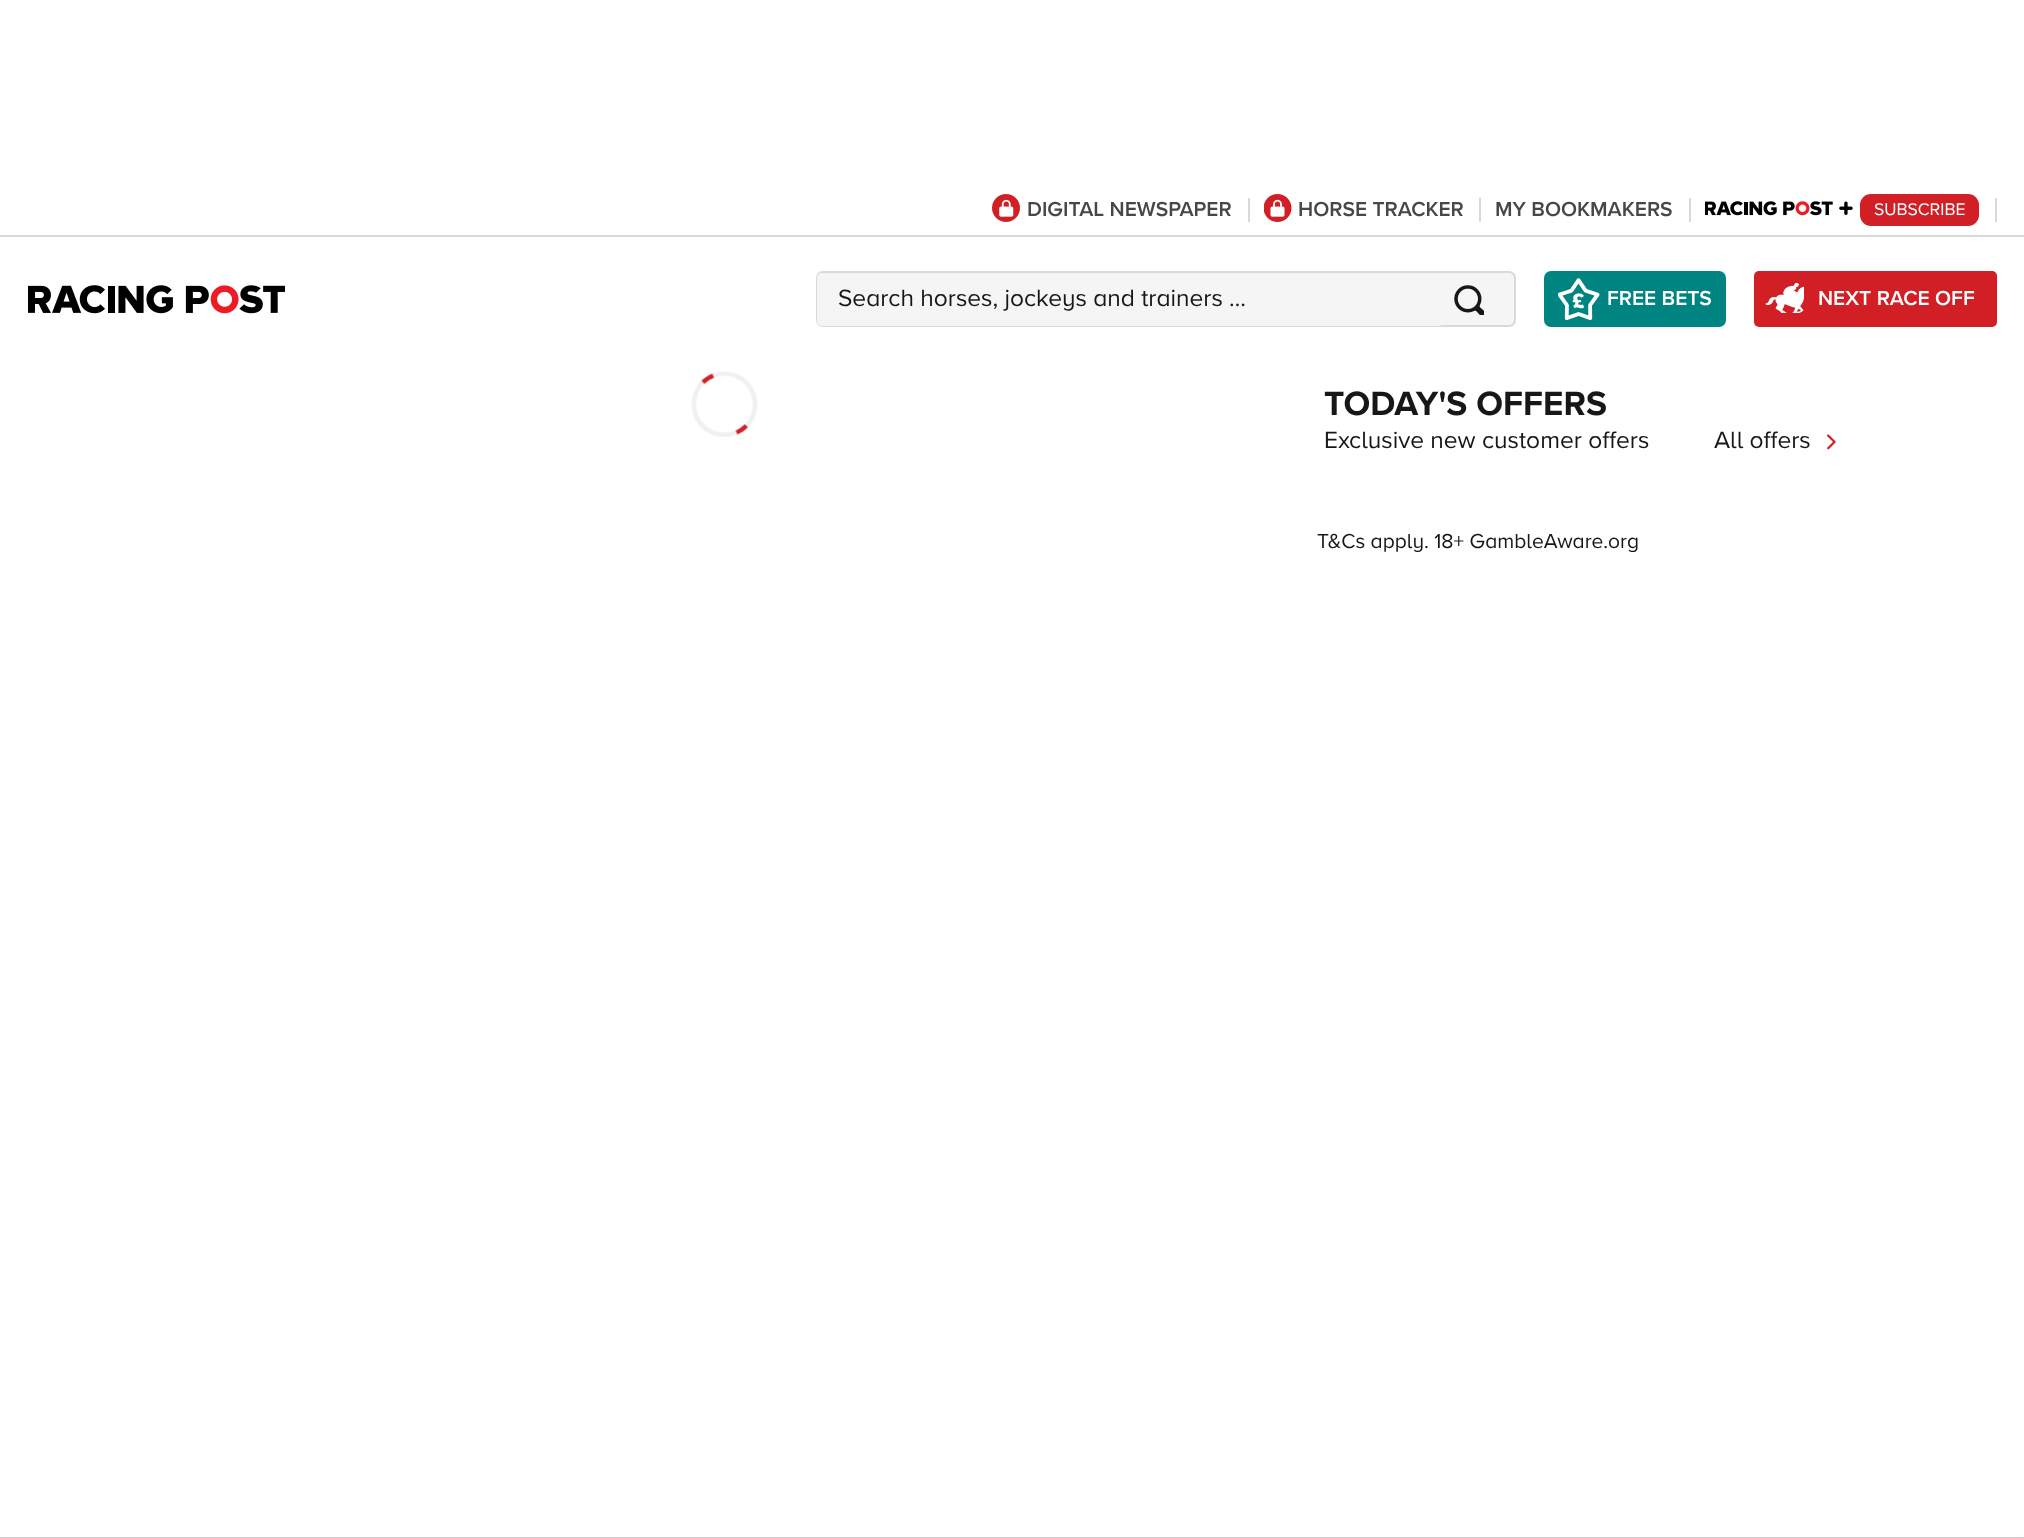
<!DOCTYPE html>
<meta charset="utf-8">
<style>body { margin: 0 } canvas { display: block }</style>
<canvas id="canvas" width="2024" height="1538"></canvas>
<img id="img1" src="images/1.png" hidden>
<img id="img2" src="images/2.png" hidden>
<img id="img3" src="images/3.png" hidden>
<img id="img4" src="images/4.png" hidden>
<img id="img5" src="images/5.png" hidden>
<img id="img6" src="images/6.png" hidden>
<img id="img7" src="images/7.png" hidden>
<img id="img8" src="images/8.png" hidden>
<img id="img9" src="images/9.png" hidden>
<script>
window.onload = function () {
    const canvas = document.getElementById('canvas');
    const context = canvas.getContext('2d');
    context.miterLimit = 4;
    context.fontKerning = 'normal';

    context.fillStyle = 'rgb(255, 255, 255)';
    context.fillRect(0, 0, 2024, 1538);
    context.fillStyle = 'rgb(217, 217, 217)';
    context.fillRect(0, 235, 2024, 2);
    context.drawImage(document.getElementById('img1'), 992, 194, 28, 28);
    context.fillRect(1248, 198, 2, 24);
    context.drawImage(document.getElementById('img2'), 1264, 194, 28, 28);
    context.fillRect(1479, 198, 2, 24);
    context.fillRect(1689, 198, 2, 24);
    context.drawImage(document.getElementById('img3'), 1705, 201, 148, 15);
    context.fillStyle = 'rgb(209, 31, 37)';
    context.beginPath();
    context.roundRect(1860, 194, 119, 32, 11);
    context.fill();
    context.fillStyle = 'rgb(217, 217, 217)';
    context.fillRect(1995, 198, 2, 24);
    context.drawImage(document.getElementById('img4'), 28, 285, 257, 29);
    context.fillStyle = 'rgb(245, 245, 245)';
    context.beginPath();
    context.roundRect(817, 272, 698, 54, 6);
    context.fill();
    context.strokeStyle = 'rgb(217, 217, 217)';
    context.lineWidth = 2;
    context.stroke();
    context.beginPath();
    context.roundRect(817, 273, 627, 53, 5);
    context.fill();
    context.drawImage(document.getElementById('img5'), 1454, 285, 30, 30);
    context.fillStyle = 'rgb(0, 132, 129)';
    context.beginPath();
    context.roundRect(1544, 271, 182, 56, 7);
    context.fill();
    context.drawImage(document.getElementById('img6'), 1558, 278, 42, 42);
    context.fillStyle = 'rgb(209, 31, 37)';
    context.beginPath();
    context.roundRect(1754, 271, 243, 56, 5);
    context.fill();
    context.drawImage(document.getElementById('img7'), 1765, 282, 39, 31);
    context.drawImage(document.getElementById('img8'), 691, 371, 67, 66);
    context.drawImage(document.getElementById('img9'), 1827, 434, 9, 16);
    context.fillStyle = 'rgb(205, 204, 203)';
    context.fillRect(0, 1537, 2024, 1);
    context.font = '600 21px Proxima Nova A';
    context.fillStyle = 'rgb(71, 71, 71)';
    context.fillText('DIGITAL NEWSPAPER', 1027, 216);
    context.fillText('HORSE TRACKER', 1298, 216);
    context.fillText('MY BOOKMAKERS', 1495, 216);
    context.font = '17.5px Proxima Nova A';
    context.fillStyle = 'rgb(255, 255, 255)';
    context.fillText('SUBSCRIBE', 1874, 215);
    context.font = '24.5px Proxima Nova A';
    context.fillStyle = 'rgb(23, 23, 23)';
    context.fillText('Search horses, jockeys and trainers …', 838, 306);
    context.font = '600 21px Proxima Nova A';
    context.fillStyle = 'rgb(255, 255, 255)';
    context.fillText('FREE BETS', 1607, 305);
    context.fillText('NEXT RACE OFF', 1818, 305);
    context.font = 'bold 35px Proxima Nova A';
    context.fillStyle = 'rgb(23, 23, 23)';
    context.fillText('TODAY\'S OFFERS', 1324, 415);
    context.font = '24.5px Proxima Nova A';
    context.fillText('Exclusive new customer offers', 1324, 448);
    context.fillText('All offers', 1714, 448);
    context.font = '21px Proxima Nova A';
    context.fillText('T&Cs apply. 18+ GambleAware.org', 1317, 548);
};
</script>
